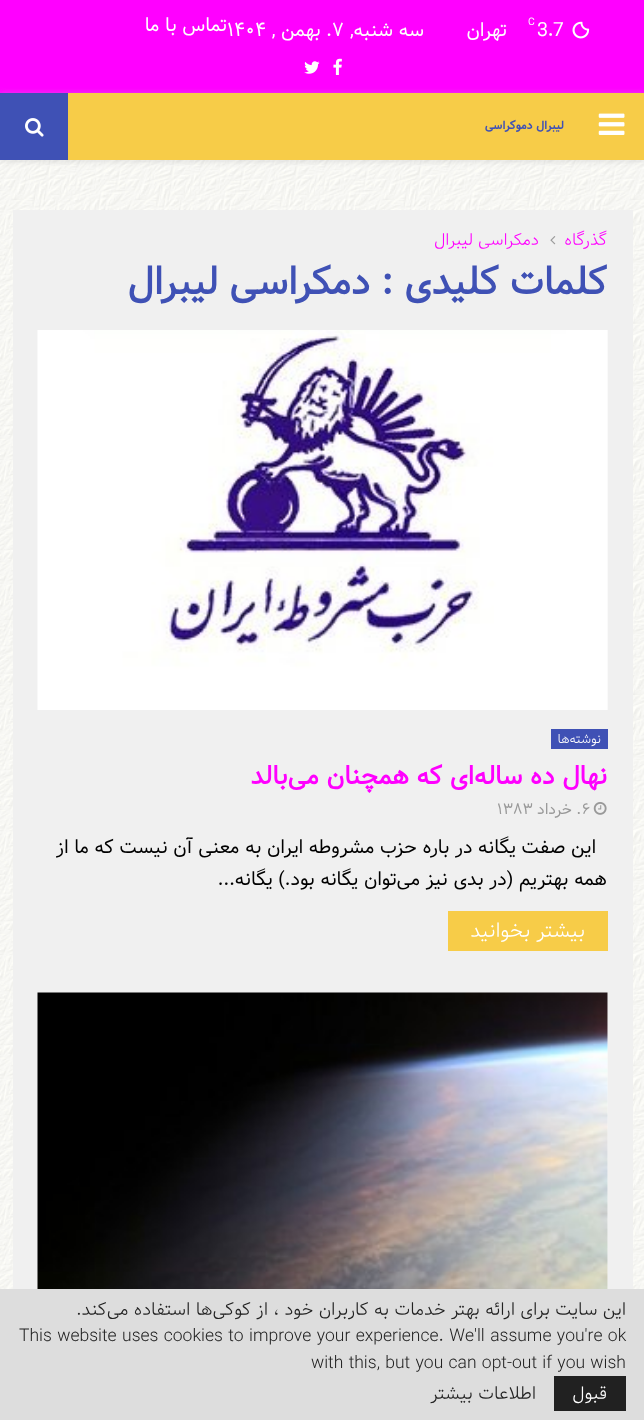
<!DOCTYPE html>
<meta charset="utf-8">
<style>body { margin: 0 } canvas { display: block }</style>
<canvas id="canvas" width="644" height="1420"></canvas>
<img id="img1" src="images/1.png" hidden>
<img id="img2" src="images/2.png" hidden>
<img id="img3" src="images/3.png" hidden>
<img id="img4" src="images/4.png" hidden>
<img id="img5" src="images/5.png" hidden>
<img id="img6" src="images/6.png" hidden>
<img id="img7" src="images/7.png" hidden>
<img id="img8" src="images/8.png" hidden>
<img id="img9" src="images/9.png" hidden>
<img id="img10" src="images/10.png" hidden>
<script>
window.onload = function () {
    const canvas = document.getElementById('canvas');
    const context = canvas.getContext('2d');
    context.miterLimit = 4;
    context.fontKerning = 'normal';

    context.fillStyle = 'rgb(255, 255, 255)';
    context.fillRect(0, 0, 644, 1420);
    context.drawImage(document.getElementById('img1'), 0, 160, 644, 1129);
    context.fillStyle = 'rgb(255, 0, 255)';
    context.fillRect(0, 0, 644, 93);
    context.drawImage(document.getElementById('img2'), 572, 21, 18, 18);
    context.drawImage(document.getElementById('img3'), 333, 58, 9, 17);
    context.drawImage(document.getElementById('img4'), 304, 61, 16, 13);
    context.fillStyle = 'rgba(190, 190, 190, 0.46)';
    context.filter = 'blur(3px)';
    context.beginPath();
    context.rect(0, 94, 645, 67);
    context.fill();
    context.filter = 'none';
    context.fillStyle = 'rgb(247, 204, 72)';
    context.fillRect(68, 93, 576, 67);
    context.drawImage(document.getElementById('img5'), 598, 113, 27, 22);
    context.fillStyle = 'rgb(63, 81, 181)';
    context.fillRect(0, 93, 68, 67);
    context.drawImage(document.getElementById('img6'), 25, 118, 19, 19);
    context.fillStyle = 'rgb(240, 240, 240)';
    context.fillRect(13, 210, 620, 1079);
    context.drawImage(document.getElementById('img7'), 550, 236, 6, 9);
    context.fillStyle = 'rgb(245, 245, 245)';
    context.fillRect(607, 330, 1, 380);
    context.drawImage(document.getElementById('img8'), 37, 330, 571, 380);
    context.fillStyle = 'rgb(63, 81, 181)';
    context.fillRect(551, 729, 57, 20);
    context.drawImage(document.getElementById('img9'), 593, 802, 14, 13);
    context.fillStyle = 'rgb(247, 204, 72)';
    context.fillRect(448, 911, 160, 40);
    context.fillStyle = 'rgb(245, 245, 245)';
    context.fillRect(607, 993, 1, 296);
    context.drawImage(document.getElementById('img10'), 37, 992, 571, 297);
    context.fillStyle = 'rgb(221, 221, 221)';
    context.fillRect(0, 1289, 644, 131);
    context.fillStyle = 'rgb(33, 33, 33)';
    context.fillRect(554, 1376, 72, 35);
    context.font = 'bold 18.75px "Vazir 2"';
    context.fillStyle = 'rgb(255, 255, 255)';
    context.fillText('3.7', 537, 36);
    context.font = 'bold 10px "Vazir 2"';
    context.fillText('C', 528, 25);
    context.direction = 'rtl';
    context.font = '18.75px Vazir';
    context.fillText('تهران', 507, 36);
    context.fillText('سه شنبه,', 424, 36);
    context.direction = 'ltr';
    context.fillText('۷', 332, 36);
    context.direction = 'rtl';
    context.fillText('. بهمن ,', 332, 36);
    context.direction = 'ltr';
    context.fillText('۱۴۰۴', 227, 36);
    context.direction = 'rtl';
    context.fillText('تماس با ما', 227, 31);
    context.font = 'bold 11.25px "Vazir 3"';
    context.fillStyle = 'rgb(63, 81, 181)';
    context.fillText('لیبرال دموکراسی', 564, 129);
    context.font = '300 16.25px Vazir';
    context.fillStyle = 'rgb(255, 0, 255)';
    context.fillText('گذرگاه', 607, 245);
    context.fillText('دمکراسی لیبرال', 539, 245);
    context.font = 'bold 37.5px Vazir';
    context.fillStyle = 'rgb(63, 81, 181)';
    context.fillText('کلمات کلیدی : دمکراسی لیبرال', 607, 294);
    context.font = '300 12.5px Vazir';
    context.fillStyle = 'rgb(255, 255, 255)';
    context.fillText('نوشته‌ها', 601, 743);
    context.font = 'bold 25px Vazir';
    context.fillStyle = 'rgb(255, 0, 255)';
    context.fillText('نهال ده ساله‌ای که همچنان می‌بالد', 607, 784);
    context.direction = 'ltr';
    context.font = '15px Vazir';
    context.fillStyle = 'rgb(153, 153, 153)';
    context.fillText('۶', 582, 814);
    context.direction = 'rtl';
    context.fillText('. خرداد', 581, 814);
    context.direction = 'ltr';
    context.fillText('۱۳۸۳', 497, 814);
    context.direction = 'rtl';
    context.font = '18.75px Vazir';
    context.fillStyle = 'rgb(0, 0, 0)';
    context.fillText('این صفت یگانه در باره حزب مشروطه ایران به معنی آن نیست که ما از', 596, 853);
    context.fillText('همه بهتریم (در بدی نیز می‌توان یگانه بود.) یگانه...', 607, 885);
    context.font = '300 20px Vazir';
    context.fillStyle = 'rgb(255, 255, 255)';
    context.fillText('بیشتر بخوانید', 585, 937);
    context.font = '300 17.5px Vazir';
    context.fillStyle = 'rgb(33, 33, 33)';
    context.fillText('این سایت برای ارائه بهتر خدمات به کاربران خود ، از کوکی‌ها استفاده می‌کند.', 626, 1315);
    context.wordSpacing = '0.1px';
    context.direction = 'ltr';
    context.fillText('This website uses cookies to improve your experience. We\'ll assume you\'re ok', 19, 1341);
    context.wordSpacing = '0px';
    context.fillText('with this, but you can opt-out if you wish', 311, 1368);
    context.direction = 'rtl';
    context.fillStyle = 'rgb(255, 255, 255)';
    context.fillText('قبول', 607, 1399);
    context.fillStyle = 'rgb(33, 33, 33)';
    context.fillText('اطلاعات بیشتر', 536, 1399);
};
</script>
